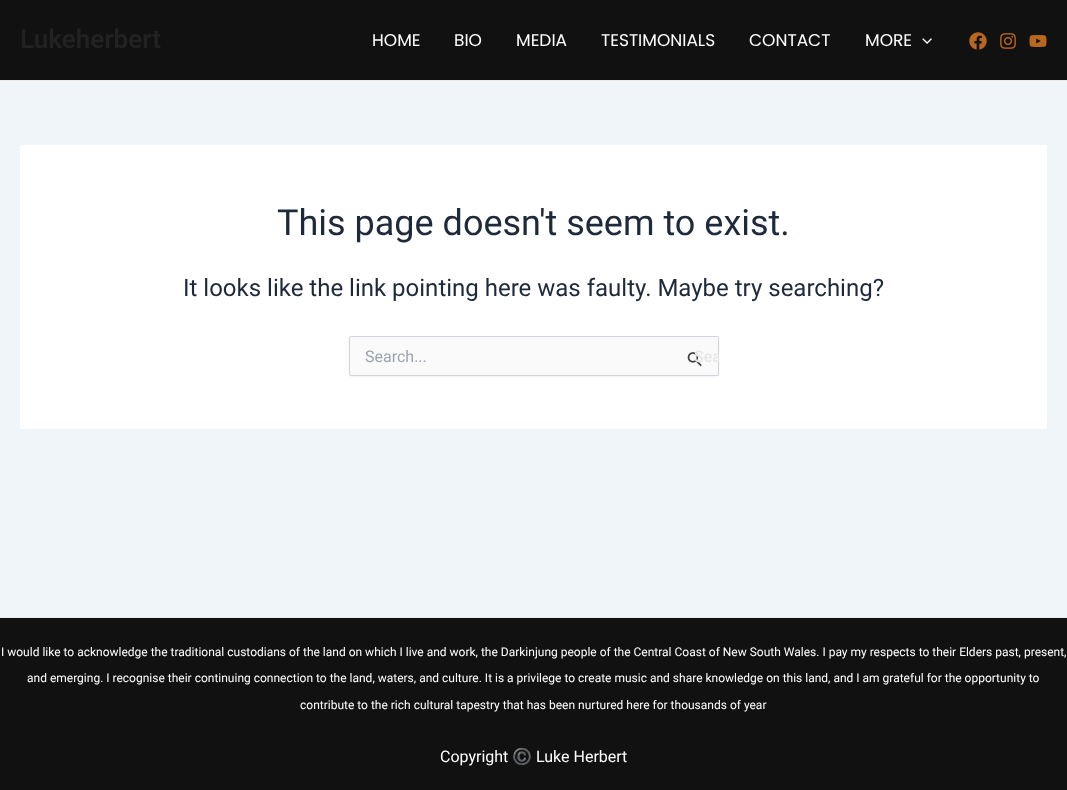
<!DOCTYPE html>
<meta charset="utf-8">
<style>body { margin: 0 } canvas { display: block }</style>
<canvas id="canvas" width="1067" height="790"></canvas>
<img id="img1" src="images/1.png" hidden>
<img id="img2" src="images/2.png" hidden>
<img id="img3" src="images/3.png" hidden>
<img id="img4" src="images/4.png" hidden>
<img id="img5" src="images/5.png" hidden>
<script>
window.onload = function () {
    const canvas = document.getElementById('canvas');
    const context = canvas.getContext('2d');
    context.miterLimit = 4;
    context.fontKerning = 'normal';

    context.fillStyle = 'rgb(240, 245, 250)';
    context.fillRect(0, 0, 1067, 790);
    context.fillStyle = 'rgb(17, 17, 17)';
    context.fillRect(0, 0, 1067, 80);
    context.fillStyle = 'rgb(234, 234, 234)';
    context.fillRect(0, 80, 1067, 1);
    context.drawImage(document.getElementById('img1'), 922, 38, 10, 6);
    context.drawImage(document.getElementById('img2'), 969, 32, 18, 18);
    context.drawImage(document.getElementById('img3'), 1000, 33, 16, 16);
    context.drawImage(document.getElementById('img4'), 1029, 35, 18, 12);
    context.fillStyle = 'rgb(255, 255, 255)';
    context.fillRect(20, 145, 1027, 284);
    context.fillStyle = 'rgba(0, 0, 0, 0.05)';
    context.filter = 'blur(1px)';
    context.beginPath();
    context.roundRect(349, 337, 370, 40, 2);
    context.fill();
    context.filter = 'none';
    context.fillStyle = 'rgb(250, 250, 250)';
    context.beginPath();
    context.roundRect(349.5, 336.5, 369, 39, 1.5);
    context.fill();
    context.strokeStyle = 'rgb(209, 213, 219)';
    context.stroke();
    context.drawImage(document.getElementById('img5'), 687, 352, 15, 15);
    context.fillStyle = 'rgb(17, 17, 17)';
    context.fillRect(0, 618, 1067, 172);
    context.fillStyle = 'rgb(234, 234, 234)';
    context.fillRect(0, 617, 1067, 1);
    context.font = '600 26px Roboto';
    context.fillStyle = 'rgb(34, 34, 34)';
    context.fillText('Lukeherbert', 20, 48);
    context.font = '17px Poppins';
    context.fillStyle = 'rgb(255, 255, 255)';
    context.fillText('HOME', 372, 46);
    context.fillText('BIO', 454, 46);
    context.fillText('MEDIA', 516, 46);
    context.fillText('TESTIMONIALS', 601, 46);
    context.fillText('CONTACT', 749, 46);
    context.fillText('MORE', 865, 46);
    context.font = '36px Roboto';
    context.fillStyle = 'rgb(30, 41, 59)';
    context.fillText('This page doesn\'t seem to exist.', 277, 235);
    context.font = '24px Roboto';
    context.fillText('It looks like the link pointing here was faulty. Maybe try searching?', 183, 296);
    context.font = '16px Roboto';
    context.fillStyle = 'rgb(156, 163, 175)';
    context.fillText('Search...', 365, 362);
    context.save();
    context.beginPath();
    context.roundRect(674, 336, 45, 42, 2);
    context.clip();
    context.font = '500 16px Roboto';
    context.fillStyle = 'rgb(230, 230, 230)';
    context.fillText('Sea', 694, 362);
    context.restore();
    context.font = '12px Roboto';
    context.fillStyle = 'rgb(255, 255, 255)';
    context.fillText('I would like to acknowledge the traditional custodians of the land on which I live and work, the Darkinjung people of the Central Coast of New South Wales. I pay my respects to their Elders past, present,', 1, 656);
    context.fillText('and emerging. I recognise their continuing connection to the land, waters, and culture. It is a privilege to create music and share knowledge on this land, and I am grateful for the opportunity to', 27, 682);
    context.fillText('contribute to the rich cultural tapestry that has been nurtured here for thousands of year', 300, 709);
    context.font = '16px Roboto';
    context.fillText('Copyright', 440, 762);
    context.font = '16px Noto Color Emoji';
    context.fillText('©️', 512, 762);
    context.font = '16px Roboto';
    context.fillText('Luke Herbert', 536, 762);
};
</script>
